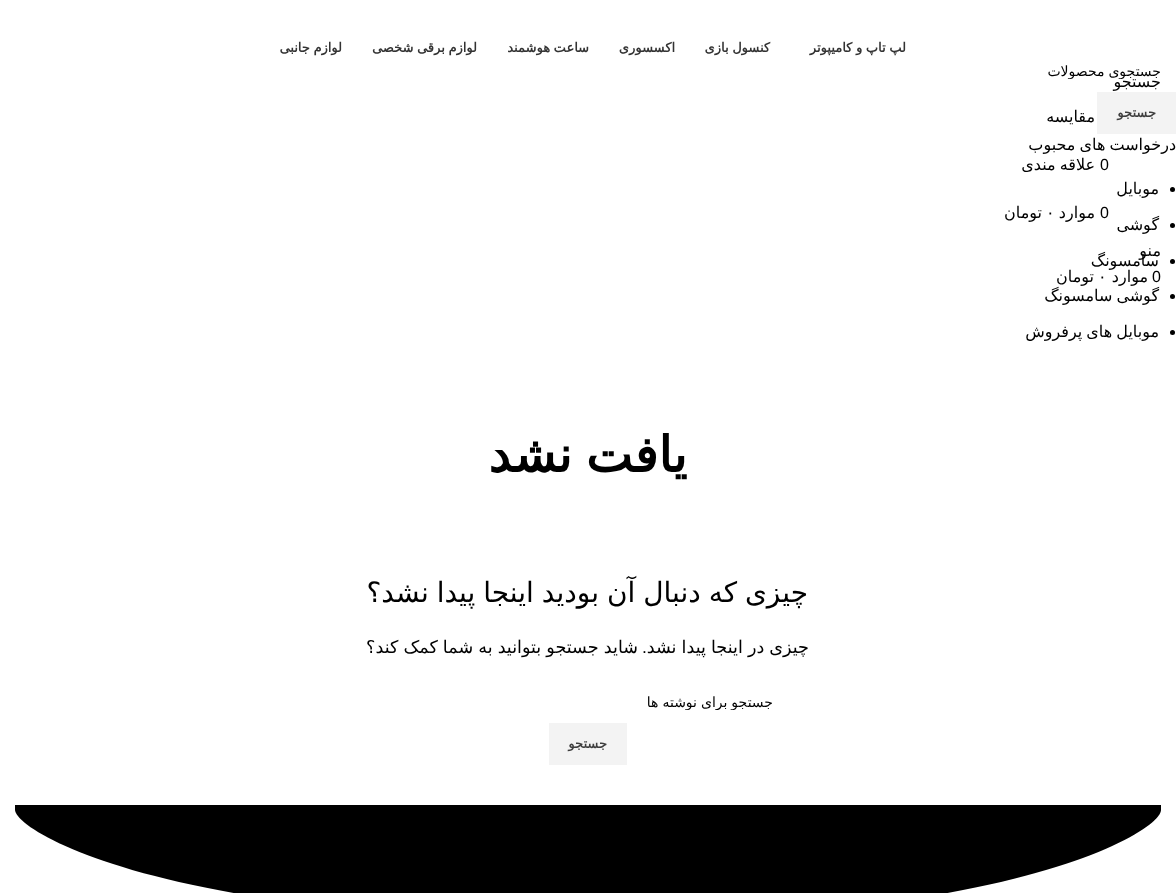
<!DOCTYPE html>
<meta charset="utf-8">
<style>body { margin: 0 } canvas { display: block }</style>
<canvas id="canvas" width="1176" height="893"></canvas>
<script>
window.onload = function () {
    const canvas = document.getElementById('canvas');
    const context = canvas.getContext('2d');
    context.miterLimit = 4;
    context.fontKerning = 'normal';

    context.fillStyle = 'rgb(255, 255, 255)';
    context.fillRect(0, 0, 1176, 893);
    context.fillStyle = 'rgb(243, 243, 243)';
    context.fillRect(549, 723, 78, 42);
    context.fillStyle = 'rgb(0, 0, 0)';
    context.beginPath();
    context.moveTo(1161, 810);
    context.lineTo(1161, 805);
    context.lineTo(15, 805);
    context.lineTo(15, 810);
    context.bezierCurveTo(16, 831, 160, 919, 588, 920);
    context.bezierCurveTo(1016, 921, 1161, 831, 1161, 810);
    context.closePath();
    context.fill();
    context.fillStyle = 'rgb(243, 243, 243)';
    context.fillRect(1097, 92, 79, 42);
    context.fillStyle = 'rgb(0, 0, 0)';
    context.beginPath();
    context.arc(1172.5, 189.5, 2.5, 0, 2 * Math.PI);
    context.fill();
    context.beginPath();
    context.arc(1172.5, 225.5, 2.5, 0, 2 * Math.PI);
    context.fill();
    context.beginPath();
    context.arc(1172.5, 261.5, 2.5, 0, 2 * Math.PI);
    context.fill();
    context.beginPath();
    context.arc(1172.5, 296.5, 2.5, 0, 2 * Math.PI);
    context.fill();
    context.beginPath();
    context.arc(1172.5, 332.5, 2.5, 0, 2 * Math.PI);
    context.fill();
    context.wordSpacing = '-0.5px';
    context.direction = 'rtl';
    context.font = 'bold 13px DejaVu Sans';
    context.fillStyle = 'rgb(51, 51, 51)';
    context.fillText('لپ تاپ و کامیپوتر', 906, 52);
    context.fillText('کنسول بازی', 770, 52);
    context.wordSpacing = '0px';
    context.fillText('اکسسوری', 675, 52);
    context.wordSpacing = '-0.5px';
    context.fillText('ساعت هوشمند', 589, 52);
    context.fillText('لوازم برقی شخصی', 477, 52);
    context.fillText('لوازم جانبی', 342, 52);
    context.wordSpacing = '0px';
    context.font = '16px DejaVu Sans';
    context.fillStyle = 'rgb(0, 0, 0)';
    context.fillText('جستجو', 1161, 87);
    context.fillText('مقایسه', 1095, 122);
    context.direction = 'ltr';
    context.font = '16px Liberation Sans';
    context.fillText('0', 1100, 170);
    context.wordSpacing = '-1px';
    context.direction = 'rtl';
    context.font = '16px DejaVu Sans';
    context.fillText('علاقه مندی', 1095, 170);
    context.wordSpacing = '0px';
    context.direction = 'ltr';
    context.font = '16px Liberation Sans';
    context.fillText('0', 1100, 218);
    context.direction = 'rtl';
    context.font = '16px DejaVu Sans';
    context.fillText('موارد', 1095, 218);
    context.direction = 'ltr';
    context.fillText('۰', 1046, 218);
    context.direction = 'rtl';
    context.fillText('تومان', 1042, 218);
    context.fillText('منو', 1161, 256);
    context.direction = 'ltr';
    context.font = '16px Liberation Sans';
    context.fillText('0', 1152, 282);
    context.direction = 'rtl';
    context.font = '16px DejaVu Sans';
    context.fillText('موارد', 1148, 282);
    context.direction = 'ltr';
    context.fillText('۰', 1098, 282);
    context.direction = 'rtl';
    context.fillText('تومان', 1094, 282);
    context.wordSpacing = '-2px';
    context.font = 'bold 49.5px DejaVu Sans';
    context.fillText('یافت نشد', 687, 472);
    context.wordSpacing = '-1px';
    context.font = '28px DejaVu Sans';
    context.fillText('چیزی که دنبال آن بودید اینجا پیدا نشد؟', 808, 602);
    context.wordSpacing = '-0.5px';
    context.font = '17.6px DejaVu Sans';
    context.fillText('چیزی در اینجا پیدا نشد', 809, 653);
    context.wordSpacing = '0px';
    context.font = '17.6px Liberation Sans';
    context.fillText('.', 647, 653);
    context.wordSpacing = '-0.5px';
    context.font = '17.6px DejaVu Sans';
    context.fillText('شاید جستجو بتوانید به شما کمک کند؟', 638, 653);
    context.save();
    context.beginPath();
    context.rect(403, 694, 370, 16);
    context.clip();
    context.font = '14px DejaVu Sans';
    context.fillText('جستجو برای نوشته ها', 773, 707);
    context.restore();
    context.wordSpacing = '0px';
    context.font = 'bold 13px DejaVu Sans';
    context.fillStyle = 'rgb(62, 62, 62)';
    context.fillText('جستجو', 607, 748);
    context.save();
    context.beginPath();
    context.rect(15, 63, 1146, 16);
    context.clip();
    context.wordSpacing = '-0.5px';
    context.font = '14px DejaVu Sans';
    context.fillStyle = 'rgb(0, 0, 0)';
    context.fillText('جستجوی محصولات', 1161, 76);
    context.restore();
    context.fillText('جستجو', 1156, 117);
    context.wordSpacing = '-1px';
    context.font = '16px DejaVu Sans';
    context.fillStyle = 'rgb(0, 0, 0)';
    context.fillText('درخواست های محبوب', 1176, 150);
    context.wordSpacing = '0px';
    context.fillText('موبایل', 1159, 194);
    context.fillText('گوشی', 1159, 230);
    context.fillText('سامسونگ', 1159, 266);
    context.wordSpacing = '-1px';
    context.fillText('گوشی سامسونگ', 1159, 301);
    context.fillText('موبایل های پرفروش', 1159, 337);
};
</script>
